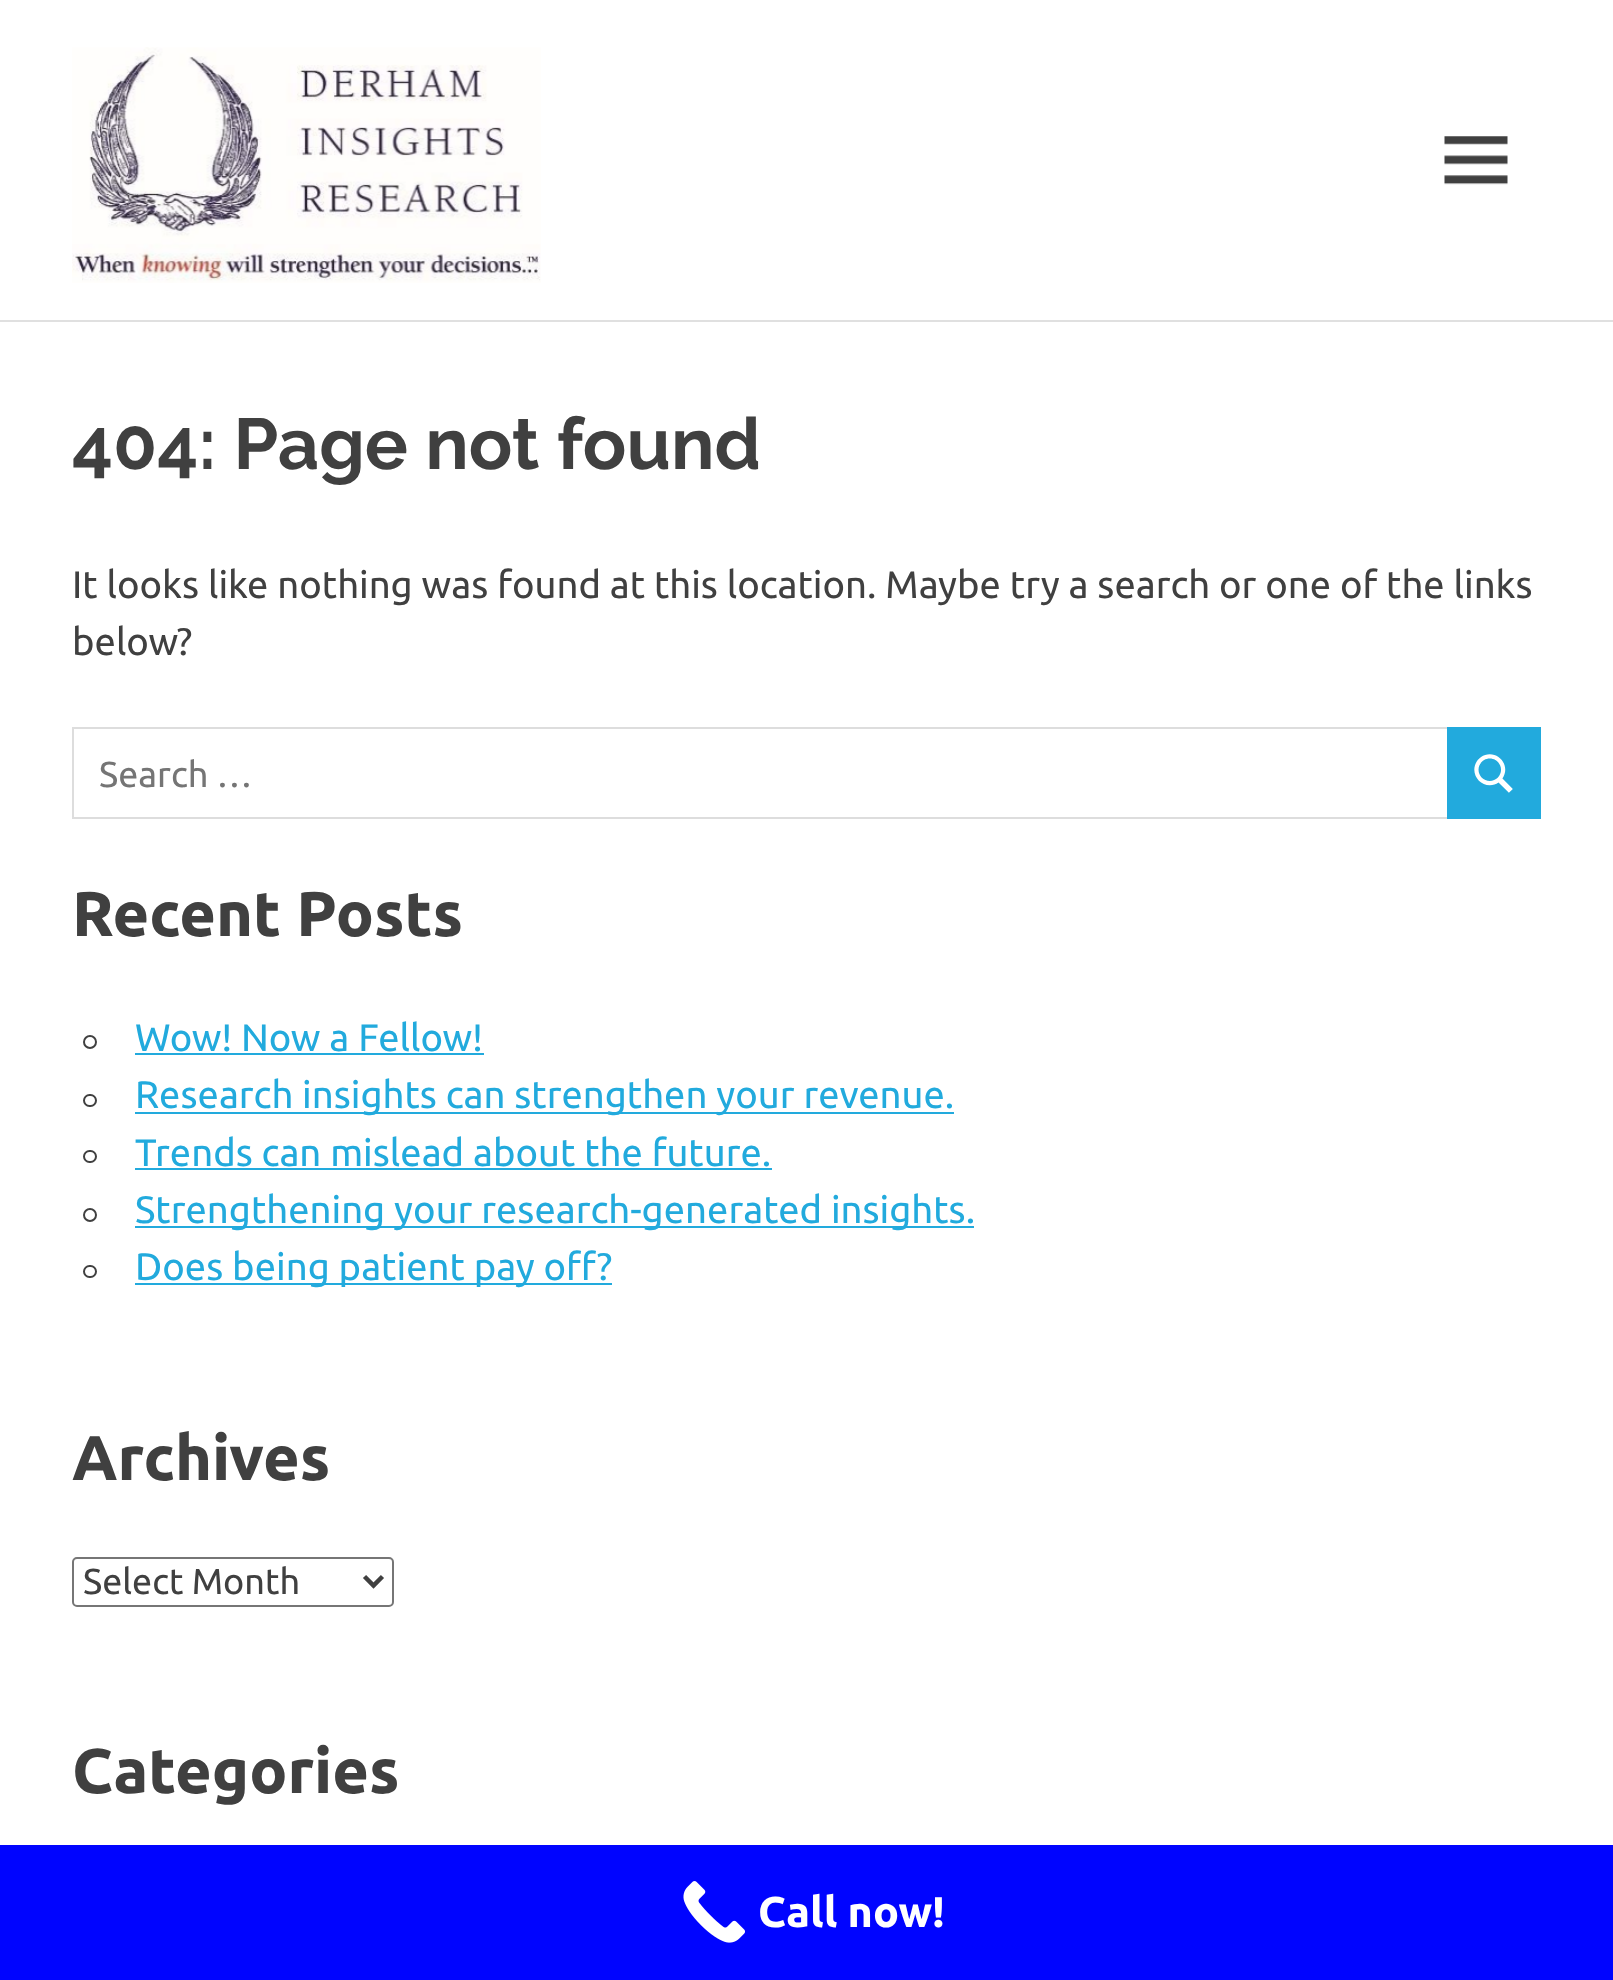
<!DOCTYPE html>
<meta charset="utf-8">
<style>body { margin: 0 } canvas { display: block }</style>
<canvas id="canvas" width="1613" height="1980"></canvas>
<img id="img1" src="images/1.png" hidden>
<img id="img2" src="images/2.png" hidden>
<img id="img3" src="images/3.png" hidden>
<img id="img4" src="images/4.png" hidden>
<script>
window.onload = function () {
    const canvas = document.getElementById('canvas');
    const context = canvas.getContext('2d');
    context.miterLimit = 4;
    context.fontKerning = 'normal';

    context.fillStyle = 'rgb(255, 255, 255)';
    context.fillRect(0, 0, 1613, 1980);
    context.fillStyle = 'rgb(224, 224, 224)';
    context.fillRect(0, 320, 1613, 2);
    context.drawImage(document.getElementById('img1'), 72, 47, 469, 236);
    context.drawImage(document.getElementById('img2'), 1444, 136, 64, 49);
    context.strokeStyle = 'rgb(221, 221, 221)';
    context.lineWidth = 2;
    context.strokeRect(73, 728, 1375, 90);
    context.fillStyle = 'rgb(34, 170, 221)';
    context.fillRect(1447, 727, 94, 92);
    context.drawImage(document.getElementById('img3'), 1474, 754, 39, 39);
    context.beginPath();
    context.arc(90, 1042, 6, 0, 2 * Math.PI);
    context.strokeStyle = 'rgb(64, 64, 64)';
    context.stroke();
    context.fillRect(135, 1053, 349, 2);
    context.beginPath();
    context.roundRect(84, 1095, 12, 11, 5.5);
    context.stroke();
    context.fillRect(135, 1112, 819, 2);
    context.beginPath();
    context.roundRect(84, 1151, 12, 11, 5.5);
    context.stroke();
    context.fillRect(135, 1168, 637, 2);
    context.beginPath();
    context.arc(90, 1215, 6, 0, 2 * Math.PI);
    context.stroke();
    context.fillRect(135, 1226, 839, 2);
    context.beginPath();
    context.roundRect(84, 1266, 12, 11, 5.5);
    context.stroke();
    context.fillRect(135, 1283, 477, 2);
    context.beginPath();
    context.roundRect(73, 1558, 320, 48, 4);
    context.strokeStyle = 'rgb(118, 118, 118)';
    context.stroke();
    context.beginPath();
    context.moveTo(364.5, 1576.5);
    context.lineTo(373.5, 1585.5);
    context.lineTo(382.5, 1576.5);
    context.strokeStyle = 'rgb(64, 64, 64)';
    context.lineWidth = 4.5;
    context.stroke();
    context.fillStyle = 'rgb(0, 4, 255)';
    context.fillRect(0, 1845, 1613, 135);
    context.drawImage(document.getElementById('img4'), 683, 1881, 62, 62);
    context.font = 'bold 72px Raleway';
    context.fillStyle = 'rgb(64, 64, 64)';
    context.fillText('404: Page not found', 72, 469);
    context.font = '38.25px Ubuntu';
    context.fillText('It looks like nothing was found at this location. Maybe try a search or one of the links', 72, 598);
    context.fillText('below?', 72, 655);
    context.font = '36px Ubuntu';
    context.fillStyle = 'rgb(117, 117, 117)';
    context.fillText('Search …', 99, 787);
    context.font = 'bold 63px Ubuntu';
    context.fillStyle = 'rgb(64, 64, 64)';
    context.fillText('Recent Posts', 72, 936);
    context.font = '38.25px Ubuntu';
    context.fillStyle = 'rgb(34, 170, 221)';
    context.fillText('Wow! Now a Fellow!', 135, 1051);
    context.fillText('Research insights can strengthen your revenue.', 135, 1108);
    context.fillText('Trends can mislead about the future.', 135, 1166);
    context.fillText('Strengthening your research-generated insights.', 135, 1223);
    context.fillText('Does being patient pay off?', 135, 1280);
    context.font = 'bold 63px Ubuntu';
    context.fillStyle = 'rgb(64, 64, 64)';
    context.fillText('Archives', 72, 1480);
    context.font = '36px Ubuntu';
    context.fillText('Select Month', 83, 1594);
    context.font = 'bold 63px Ubuntu';
    context.fillText('Categories', 72, 1793);
    context.font = 'bold 43px Ubuntu';
    context.fillStyle = 'rgb(255, 255, 255)';
    context.fillText('Call now!', 758, 1927);
};
</script>
